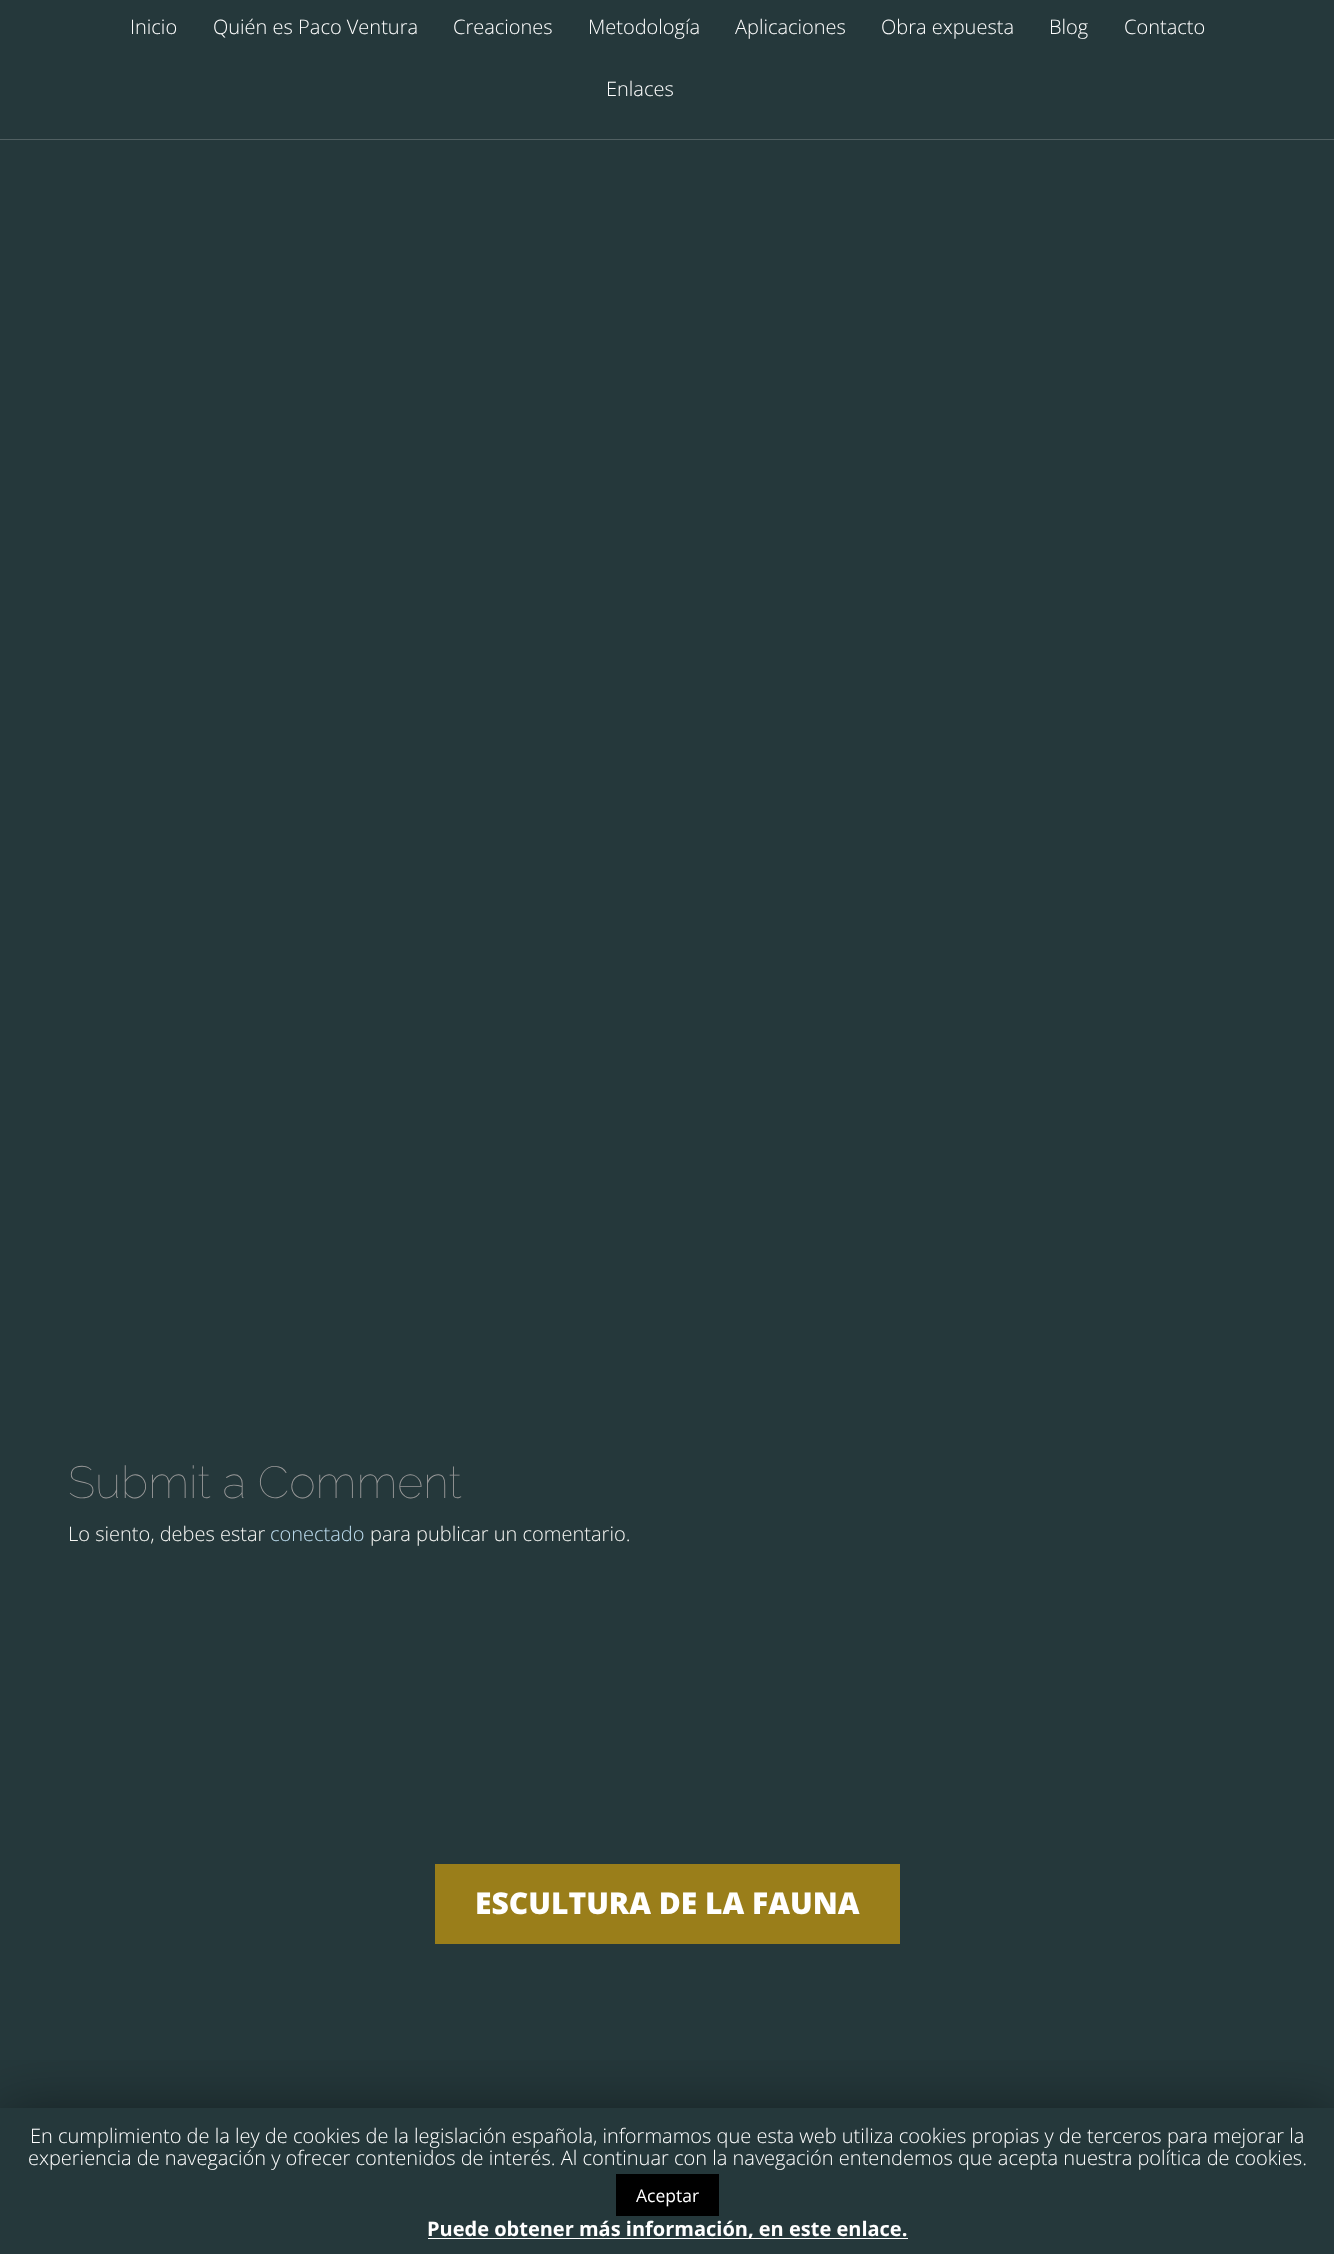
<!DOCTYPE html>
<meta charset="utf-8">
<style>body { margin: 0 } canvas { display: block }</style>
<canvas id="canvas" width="1334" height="2254"></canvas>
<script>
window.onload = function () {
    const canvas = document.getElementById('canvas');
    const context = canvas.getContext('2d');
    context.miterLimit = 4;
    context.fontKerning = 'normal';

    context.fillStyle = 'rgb(37, 56, 59)';
    context.fillRect(0, 0, 1334, 2254);
    context.fillStyle = 'rgb(81, 96, 98)';
    context.fillRect(0, 139, 1334, 1);
    context.fillStyle = 'rgb(154, 126, 26)';
    context.fillRect(435, 1864, 465, 80);
    context.save();
    context.beginPath();
    context.rect(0, 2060, 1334, 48);
    context.clip();
    context.fillStyle = 'rgba(0, 0, 0, 0.5)';
    context.filter = 'blur(31px)';
    context.beginPath();
    context.rect(0, 2114, 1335, 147);
    context.fill();
    context.filter = 'none';
    context.restore();
    context.fillStyle = 'rgb(0, 0, 0)';
    context.fillRect(616, 2174, 103, 42);
    context.fillStyle = 'rgb(255, 255, 255)';
    context.fillRect(428, 2238, 480, 1);
    context.font = '300 20px Open Sans';
    context.fillText('Inicio', 130, 34);
    context.fillText('Quién es Paco Ventura', 213, 34);
    context.fillText('Creaciones', 453, 34);
    context.fillText('Metodología', 588, 34);
    context.fillText('Aplicaciones', 735, 34);
    context.fillText('Obra expuesta', 881, 34);
    context.fillText('Blog', 1049, 34);
    context.fillText('Contacto', 1124, 34);
    context.fillText('Enlaces', 606, 96);
    context.font = '100 45px Raleway';
    context.fillStyle = 'rgb(153, 153, 153)';
    context.fillText('Submit a Comment', 68, 1498);
    context.font = '300 20px Open Sans';
    context.fillStyle = 'rgb(247, 247, 244)';
    context.fillText('Lo siento, debes estar', 68, 1541);
    context.fillStyle = 'rgb(189, 221, 239)';
    context.fillText('conectado', 270, 1541);
    context.fillStyle = 'rgb(247, 247, 244)';
    context.fillText('para publicar un comentario.', 370, 1541);
    context.font = '800 30px Open Sans';
    context.fillStyle = 'rgb(255, 255, 255)';
    context.fillText('ESCULTURA DE LA FAUNA', 475, 1914);
    context.font = '300 20px Open Sans';
    context.fillText('En cumplimiento de la ley de cookies de la legislación española, informamos que esta web utiliza cookies propias y de terceros para mejorar la', 30, 2143);
    context.fillText('experiencia de navegación y ofrecer contenidos de interés. Al continuar con la navegación entendemos que acepta nuestra política de cookies.', 28, 2165);
    context.font = '17.5px Open Sans';
    context.fillText('Aceptar', 636, 2202);
    context.font = 'bold 20px Open Sans';
    context.fillText('Puede obtener más información, en este enlace.', 427, 2236);
};
</script>
